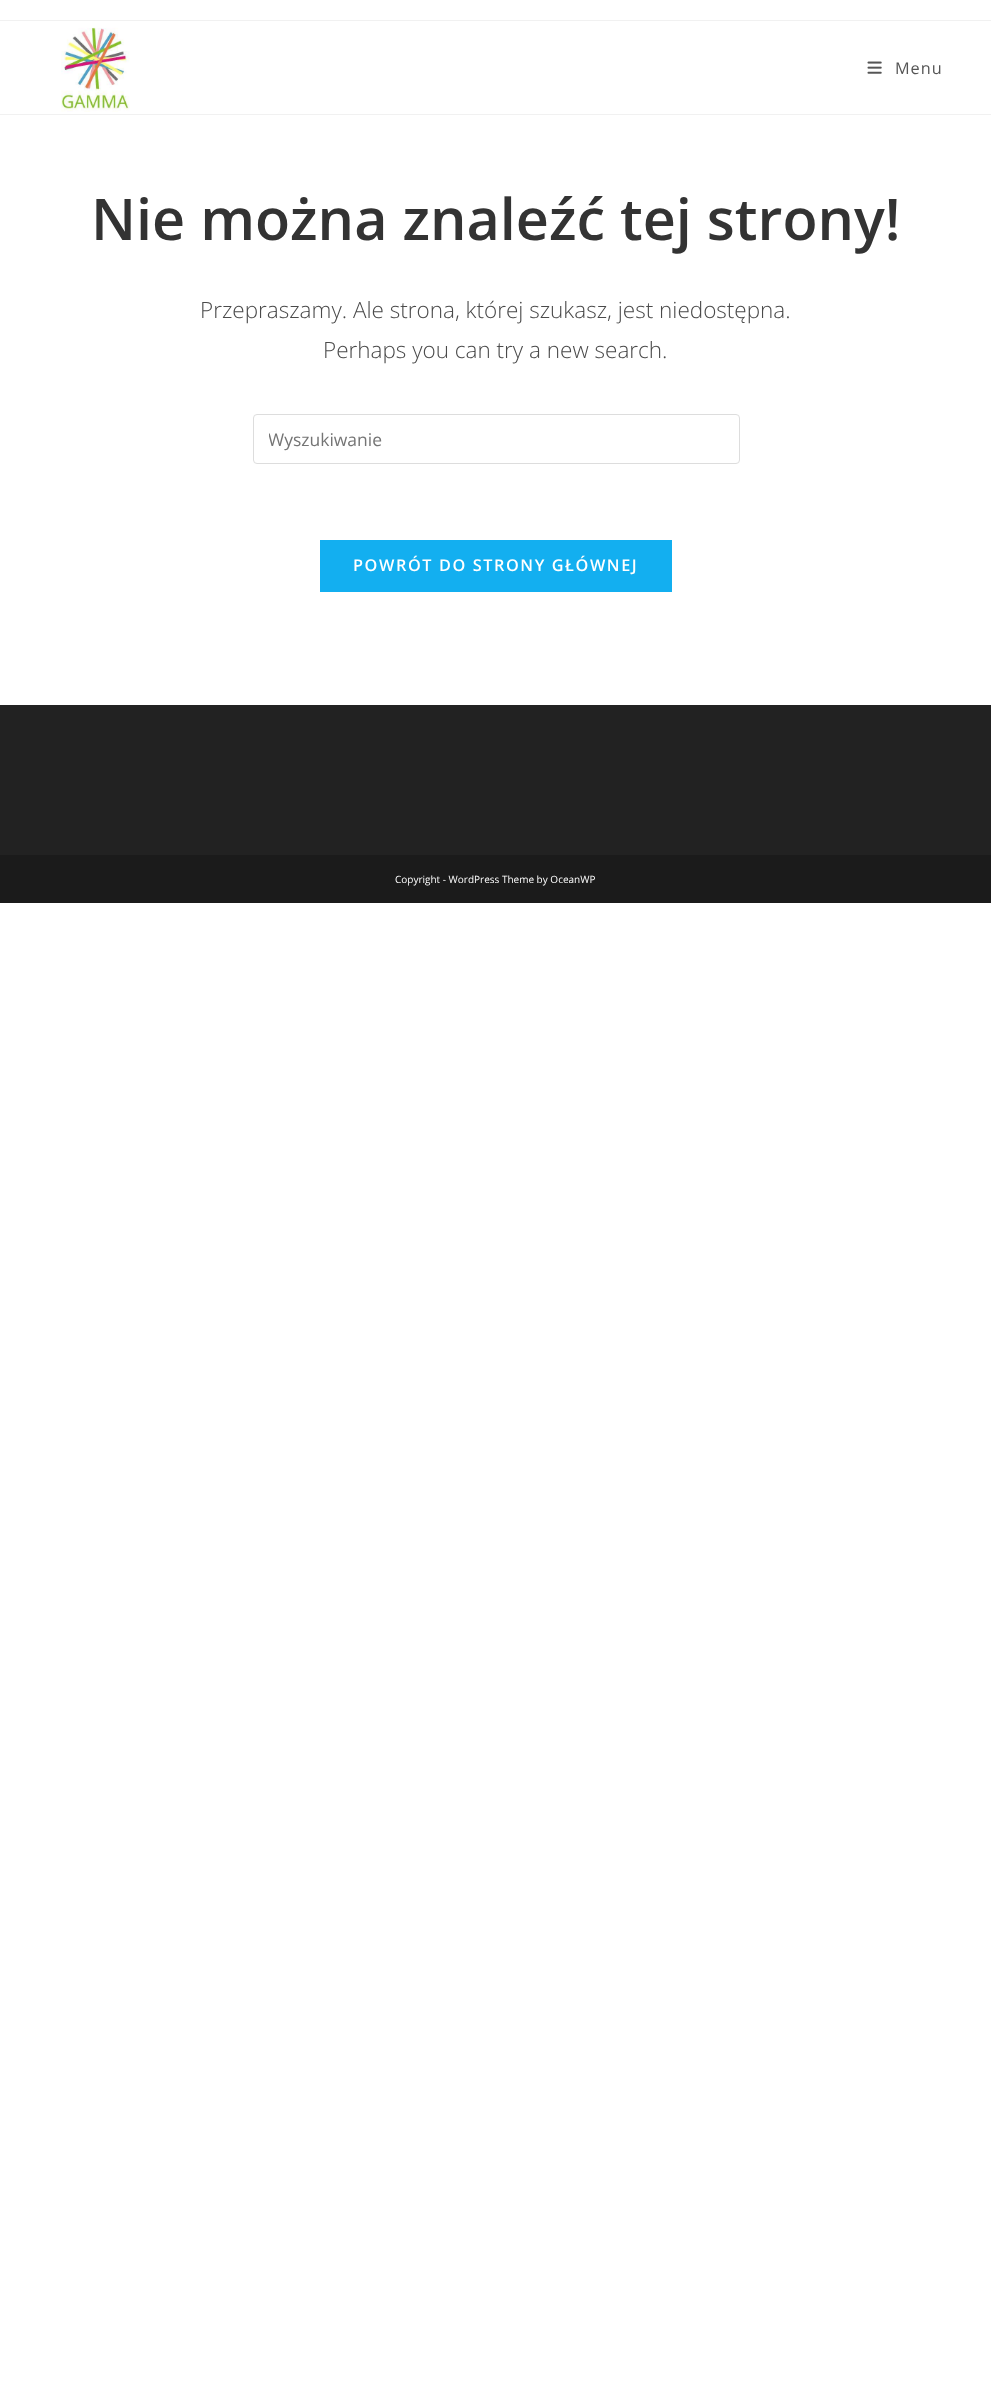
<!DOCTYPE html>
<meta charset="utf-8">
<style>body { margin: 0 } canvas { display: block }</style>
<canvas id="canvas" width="991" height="2394"></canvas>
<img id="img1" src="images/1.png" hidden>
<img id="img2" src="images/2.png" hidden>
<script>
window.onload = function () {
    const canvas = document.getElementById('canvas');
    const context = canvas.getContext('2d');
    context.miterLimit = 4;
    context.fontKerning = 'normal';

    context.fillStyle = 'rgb(255, 255, 255)';
    context.fillRect(0, 0, 991, 2394);
    context.fillStyle = 'rgb(241, 241, 241)';
    context.fillRect(0, 20, 991, 1);
    context.fillRect(0, 114, 991, 1);
    context.drawImage(document.getElementById('img1'), 61, 27, 69, 85);
    context.drawImage(document.getElementById('img2'), 867, 61, 15, 13);
    context.beginPath();
    context.roundRect(253.5, 414.5, 486, 49, 3.5);
    context.strokeStyle = 'rgb(221, 221, 221)';
    context.stroke();
    context.fillStyle = 'rgb(19, 175, 240)';
    context.fillRect(320, 540, 352, 52);
    context.fillStyle = 'rgb(34, 34, 34)';
    context.fillRect(0, 705, 991, 150);
    context.fillStyle = 'rgb(27, 27, 27)';
    context.fillRect(0, 855, 991, 48);
    context.letterSpacing = '1px';
    context.font = '16.25px Open Sans';
    context.fillStyle = 'rgb(85, 85, 85)';
    context.fillText('Menu', 895, 74);
    context.letterSpacing = '0px';
    context.font = '600 57.5px Open Sans';
    context.fillStyle = 'rgb(51, 51, 51)';
    context.fillText('Nie można znaleźć tej strony!', 91, 240);
    context.font = '300 22.5px Open Sans';
    context.fillStyle = 'rgb(74, 74, 74)';
    context.fillText('Przepraszamy. Ale strona, której szukasz, jest niedostępna.', 200, 318);
    context.fillText('Perhaps you can try a new search.', 323, 358);
    context.save();
    context.beginPath();
    context.rect(269, 428, 455, 23);
    context.clip();
    context.font = '17.5px Open Sans';
    context.fillStyle = 'rgb(117, 117, 117)';
    context.fillText('Wyszukiwanie', 268, 446);
    context.restore();
    context.letterSpacing = '1.6px';
    context.font = '600 16.25px Open Sans';
    context.fillStyle = 'rgb(255, 255, 255)';
    context.fillText('POWRÓT DO STRONY GŁÓWNEJ', 353, 571);
    context.letterSpacing = '0px';
    context.font = '10px Open Sans';
    context.fillText('Copyright - WordPress Theme by OceanWP', 395, 883);
};
</script>
